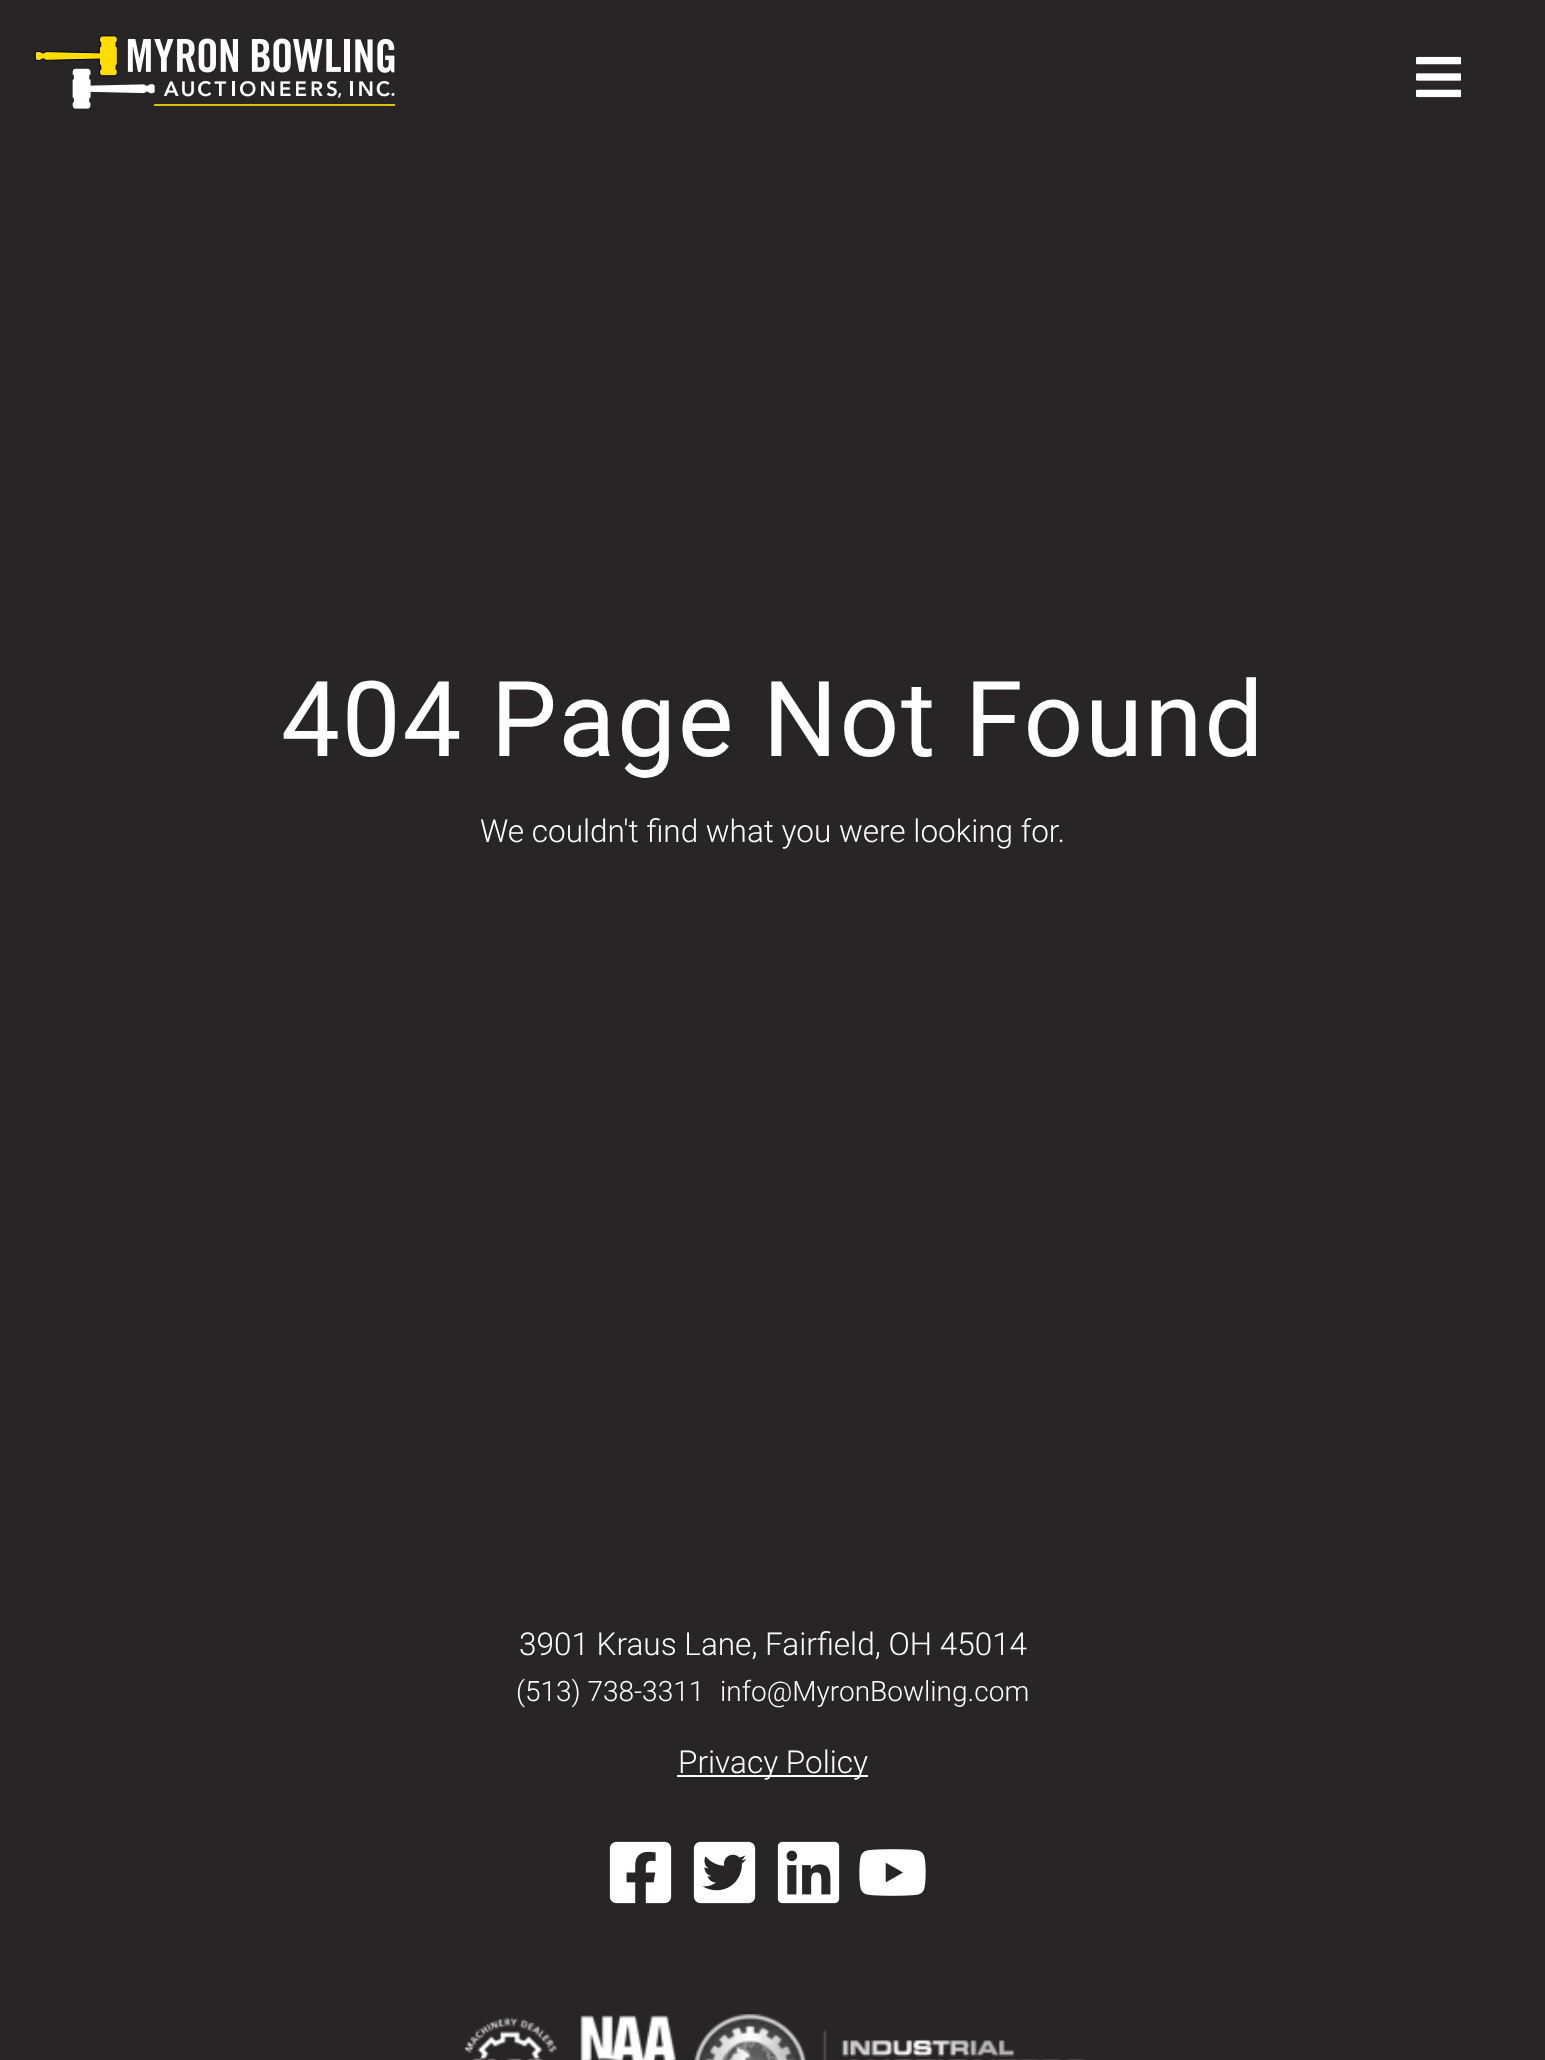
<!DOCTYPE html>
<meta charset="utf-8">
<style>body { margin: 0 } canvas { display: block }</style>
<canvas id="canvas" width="1545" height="2060"></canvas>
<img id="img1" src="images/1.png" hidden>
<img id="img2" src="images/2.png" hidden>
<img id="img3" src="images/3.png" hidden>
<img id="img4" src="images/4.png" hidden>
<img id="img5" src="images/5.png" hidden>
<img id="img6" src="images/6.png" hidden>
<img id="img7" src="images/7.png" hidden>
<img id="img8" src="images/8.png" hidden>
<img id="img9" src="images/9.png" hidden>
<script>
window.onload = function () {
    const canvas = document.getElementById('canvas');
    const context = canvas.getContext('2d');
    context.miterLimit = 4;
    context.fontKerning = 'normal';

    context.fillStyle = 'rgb(39, 37, 37)';
    context.fillRect(0, 0, 1545, 2060);
    context.drawImage(document.getElementById('img1'), 34, 35, 361, 74);
    context.drawImage(document.getElementById('img2'), 1416, 56, 45, 42);
    context.fillStyle = 'rgb(255, 255, 255)';
    context.fillRect(677, 1775, 191, 2);
    context.drawImage(document.getElementById('img3'), 609, 1841, 63, 63);
    context.drawImage(document.getElementById('img4'), 693, 1841, 63, 63);
    context.drawImage(document.getElementById('img5'), 777, 1841, 63, 63);
    context.drawImage(document.getElementById('img6'), 859, 1849, 67, 47);
    context.drawImage(document.getElementById('img7'), 463, 2017, 94, 43);
    context.drawImage(document.getElementById('img8'), 580, 2015, 96, 45);
    context.drawImage(document.getElementById('img9'), 694, 2014, 391, 46);
    context.letterSpacing = '1.75px';
    context.font = '104.9px Roboto';
    context.fillText('404 Page Not Found', 281, 756);
    context.letterSpacing = '0px';
    context.font = '300 31.5px Roboto';
    context.fillText('We couldn\'t find what you were looking for.', 480, 842);
    context.fillText('3901 Kraus Lane, Fairfield, OH 45014', 519, 1655);
    context.font = '300 28px Roboto';
    context.fillText('(513) 738-3311', 516, 1701);
    context.fillText('info@MyronBowling.com', 720, 1701);
    context.font = '300 31.5px Roboto';
    context.fillText('Privacy Policy', 678, 1773);
};
</script>
